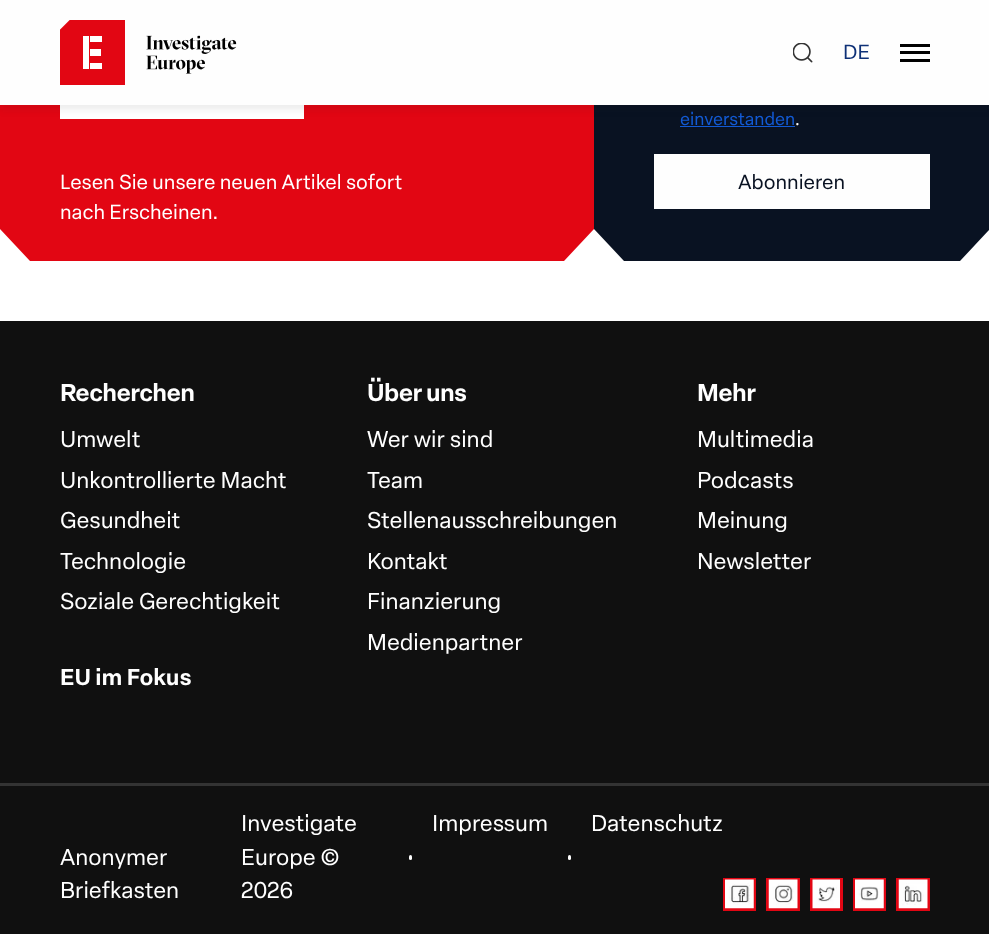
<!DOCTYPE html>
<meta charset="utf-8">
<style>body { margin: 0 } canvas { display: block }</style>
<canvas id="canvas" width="989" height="934"></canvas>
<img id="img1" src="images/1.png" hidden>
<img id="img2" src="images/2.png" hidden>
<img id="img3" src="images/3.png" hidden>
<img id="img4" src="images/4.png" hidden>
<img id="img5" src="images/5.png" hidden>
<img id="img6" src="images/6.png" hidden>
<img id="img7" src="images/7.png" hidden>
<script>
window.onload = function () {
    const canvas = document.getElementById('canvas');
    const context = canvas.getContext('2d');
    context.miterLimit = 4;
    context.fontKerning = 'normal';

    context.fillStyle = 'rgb(255, 255, 255)';
    context.fillRect(0, 0, 989, 934);
    context.fillStyle = 'rgb(9, 18, 34)';
    context.beginPath();
    context.moveTo(594, 229);
    context.lineTo(594, -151);
    context.lineTo(624, -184);
    context.lineTo(960, -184);
    context.lineTo(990, -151);
    context.lineTo(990, 229);
    context.lineTo(960, 261);
    context.lineTo(624, 261);
    context.closePath();
    context.fill();
    context.fillStyle = 'rgb(226, 6, 19)';
    context.beginPath();
    context.moveTo(0, -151);
    context.lineTo(0, 229);
    context.lineTo(30, 261);
    context.lineTo(564, 261);
    context.lineTo(594, 229);
    context.lineTo(594, -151);
    context.lineTo(564, -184);
    context.lineTo(30, -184);
    context.closePath();
    context.fill();
    context.fillStyle = 'rgb(255, 255, 255)';
    context.fillRect(60, 105, 244, 14);
    context.fillStyle = 'rgba(18, 18, 18, 0.09)';
    context.filter = 'blur(4px)';
    context.beginPath();
    context.rect(0, 4, 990, 105);
    context.fill();
    context.filter = 'none';
    context.fillStyle = 'rgb(254, 254, 254)';
    context.fillRect(0, 0, 989, 105);
    context.drawImage(document.getElementById('img1'), 60, 20, 177, 65);
    context.drawImage(document.getElementById('img2'), 793, 43, 20, 20);
    context.fillStyle = 'rgb(1, 1, 1)';
    context.fillRect(900, 44, 30, 3);
    context.fillRect(900, 51, 30, 3);
    context.fillRect(900, 59, 30, 3);
    context.fillStyle = 'rgb(18, 90, 213)';
    context.fillRect(680, 126, 115, 1);
    context.fillStyle = 'rgb(254, 254, 254)';
    context.fillRect(654, 154, 276, 55);
    context.fillStyle = 'rgb(16, 16, 16)';
    context.fillRect(0, 321, 989, 613);
    context.fillStyle = 'rgb(51, 51, 51)';
    context.fillRect(0, 783, 989, 3);
    context.fillStyle = 'rgb(254, 254, 254)';
    context.beginPath();
    context.roundRect(409, 855, 3, 5, 1.5);
    context.fill();
    context.beginPath();
    context.roundRect(568, 855, 3, 5, 1.5);
    context.fill();
    context.strokeStyle = 'rgb(226, 6, 19)';
    context.lineWidth = 3;
    context.strokeRect(724.5, 879.5, 30, 30);
    context.drawImage(document.getElementById('img3'), 725, 879, 29, 30);
    context.strokeRect(767.5, 879.5, 31, 30);
    context.drawImage(document.getElementById('img4'), 768, 879, 30, 30);
    context.strokeRect(811.5, 879.5, 30, 30);
    context.drawImage(document.getElementById('img5'), 812, 879, 28, 30);
    context.strokeRect(854.5, 879.5, 30, 30);
    context.drawImage(document.getElementById('img6'), 855, 879, 29, 30);
    context.strokeRect(897.5, 879.5, 31, 30);
    context.drawImage(document.getElementById('img7'), 898, 879, 30, 30);
    context.font = '20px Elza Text';
    context.fillStyle = 'rgb(14, 49, 119)';
    context.fillText('DE', 843, 59);
    context.font = '17.5px Elza Text';
    context.fillStyle = 'rgb(18, 90, 213)';
    context.fillText('einverstanden', 680, 125);
    context.font = '17.5px Noto Sans';
    context.fillStyle = 'rgb(255, 255, 255)';
    context.fillText('.', 795, 125);
    context.font = '20px Elza Text';
    context.fillStyle = 'rgb(9, 18, 34)';
    context.fillText('Abonnieren', 738, 189);
    context.fillStyle = 'rgb(255, 255, 255)';
    context.fillText('Lesen Sie unsere neuen Artikel sofort', 60, 189);
    context.fillText('nach Erscheinen.', 60, 219);
    context.letterSpacing = '-0.6px';
    context.font = '600 24px Elza Text';
    context.fillText('Recherchen', 60, 401);
    context.letterSpacing = '0px';
    context.font = '22.5px Elza Text';
    context.fillText('Umwelt', 60, 447);
    context.fillText('Unkontrollierte Macht', 60, 488);
    context.fillText('Gesundheit', 60, 528);
    context.fillText('Technologie', 60, 569);
    context.fillText('Soziale Gerechtigkeit', 60, 609);
    context.font = '600 22.5px Elza Text';
    context.fillText('EU im Fokus', 60, 685);
    context.letterSpacing = '-0.6px';
    context.font = '600 24px Elza Text';
    context.fillText('Über uns', 367, 401);
    context.letterSpacing = '0px';
    context.font = '22.5px Elza Text';
    context.fillText('Wer wir sind', 367, 447);
    context.fillText('Team', 367, 488);
    context.fillText('Stellenausschreibungen', 367, 528);
    context.fillText('Kontakt', 367, 569);
    context.fillText('Finanzierung', 367, 609);
    context.fillText('Medienpartner', 367, 650);
    context.letterSpacing = '-0.6px';
    context.font = '600 24px Elza Text';
    context.fillText('Mehr', 697, 401);
    context.letterSpacing = '0px';
    context.font = '22.5px Elza Text';
    context.fillText('Multimedia', 697, 447);
    context.fillText('Podcasts', 697, 488);
    context.fillText('Meinung', 697, 528);
    context.fillText('Newsletter', 697, 569);
    context.fillText('Anonymer', 60, 865);
    context.fillText('Briefkasten', 60, 898);
    context.fillText('Investigate', 241, 831);
    context.fillText('Europe ©', 241, 865);
    context.fillText('2026', 241, 898);
    context.fillText('Impressum', 432, 831);
    context.fillText('Datenschutz', 591, 831);
};
</script>
